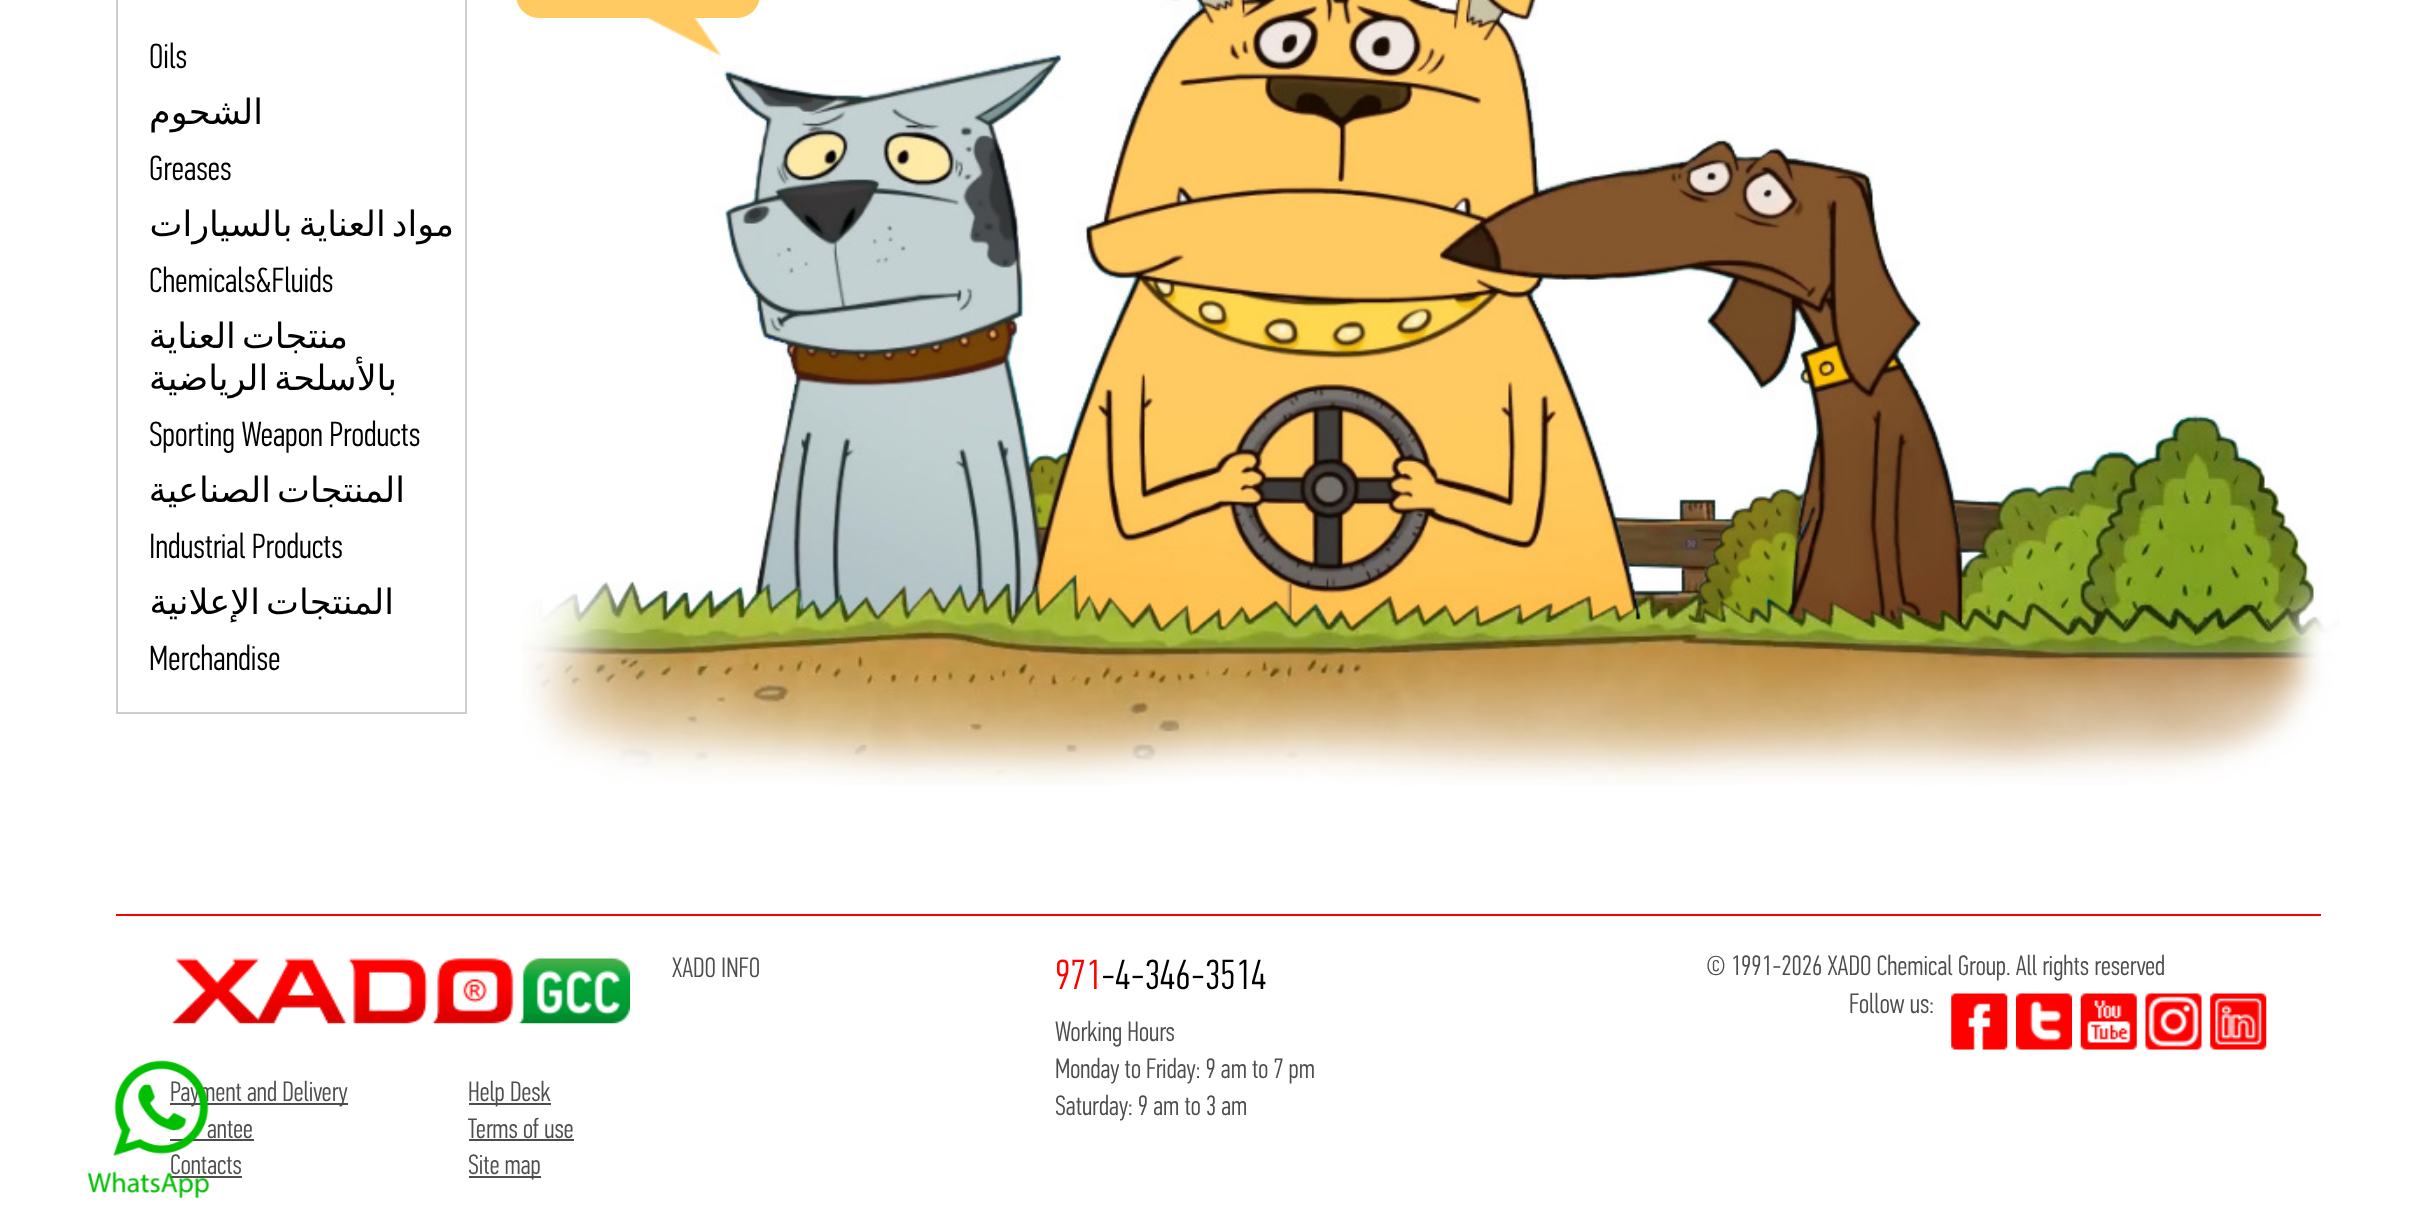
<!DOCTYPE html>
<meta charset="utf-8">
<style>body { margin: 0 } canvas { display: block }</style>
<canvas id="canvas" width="2435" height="1224"></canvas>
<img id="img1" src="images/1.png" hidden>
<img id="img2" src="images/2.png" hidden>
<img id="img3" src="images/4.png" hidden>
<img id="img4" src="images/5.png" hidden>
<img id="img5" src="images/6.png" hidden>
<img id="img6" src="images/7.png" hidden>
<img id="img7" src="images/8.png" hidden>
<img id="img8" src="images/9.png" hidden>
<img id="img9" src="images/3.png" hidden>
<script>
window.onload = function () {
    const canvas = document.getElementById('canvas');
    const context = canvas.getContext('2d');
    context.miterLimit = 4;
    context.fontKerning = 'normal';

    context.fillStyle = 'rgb(255, 255, 255)';
    context.fillRect(0, 0, 2435, 1224);
    context.strokeStyle = 'rgb(205, 205, 205)';
    context.lineWidth = 2;
    context.strokeRect(117, -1, 349, 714);
    context.drawImage(document.getElementById('img1'), 521, 0, 1819, 786);
    context.fillStyle = 'rgb(255, 202, 97)';
    context.beginPath();
    context.roundRect(516, -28, 244, 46, 28);
    context.fill();
    context.drawImage(document.getElementById('img2'), 645, 18, 76, 38);
    context.fillStyle = 'rgb(255, 0, 0)';
    context.fillRect(116, 914, 2205, 2);
    context.drawImage(document.getElementById('img3'), 171, 958, 459, 66);
    context.fillStyle = 'rgb(77, 77, 77)';
    context.fillRect(170, 1103, 178, 2);
    context.fillRect(170, 1139, 84, 2);
    context.fillRect(170, 1176, 72, 2);
    context.fillRect(469, 1103, 82, 2);
    context.fillRect(469, 1139, 105, 2);
    context.fillRect(469, 1176, 72, 2);
    context.drawImage(document.getElementById('img4'), 1951, 993, 57, 57);
    context.drawImage(document.getElementById('img5'), 2016, 993, 56, 57);
    context.drawImage(document.getElementById('img6'), 2080, 993, 57, 57);
    context.drawImage(document.getElementById('img7'), 2145, 993, 57, 57);
    context.drawImage(document.getElementById('img8'), 2210, 993, 57, 57);
    context.font = '300 35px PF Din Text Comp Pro';
    context.fillStyle = 'rgb(0, 0, 0)';
    context.fillText('Oils', 149, 68);
    context.direction = 'rtl';
    context.font = '35px DejaVu Sans';
    context.fillText('الشحوم', 263, 124);
    context.direction = 'ltr';
    context.font = '300 35px PF Din Text Comp Pro';
    context.fillText('Greases', 149, 180);
    context.wordSpacing = '-5px';
    context.direction = 'rtl';
    context.font = '35px DejaVu Sans';
    context.fillText('مواد العناية بالسيارات', 454, 236);
    context.wordSpacing = '0px';
    context.direction = 'ltr';
    context.font = '300 35px PF Din Text Comp Pro';
    context.fillText('Chemicals&Fluids', 149, 292);
    context.wordSpacing = '-5px';
    context.direction = 'rtl';
    context.font = '35px DejaVu Sans';
    context.fillText('منتجات العناية', 348, 348);
    context.fillText('بالأسلحة الرياضية', 397, 390);
    context.wordSpacing = '0px';
    context.direction = 'ltr';
    context.font = '300 35px PF Din Text Comp Pro';
    context.fillText('Sporting Weapon Products', 149, 446);
    context.wordSpacing = '-5px';
    context.direction = 'rtl';
    context.font = '35px DejaVu Sans';
    context.fillText('المنتجات الصناعية', 405, 502);
    context.wordSpacing = '0px';
    context.direction = 'ltr';
    context.font = '300 35px PF Din Text Comp Pro';
    context.fillText('Industrial Products', 149, 558);
    context.wordSpacing = '-5px';
    context.direction = 'rtl';
    context.font = '35px DejaVu Sans';
    context.fillText('المنتجات الإعلانية', 394, 614);
    context.wordSpacing = '0px';
    context.direction = 'ltr';
    context.font = '300 35px PF Din Text Comp Pro';
    context.fillText('Merchandise', 149, 670);
    context.font = '300 28px PF Din Text Comp Pro';
    context.fillStyle = 'rgb(77, 77, 77)';
    context.fillText('XADO INFO', 672, 977);
    context.fillText('Payment and Delivery', 170, 1101);
    context.fillText('antee', 207, 1138);
    context.fillText('Contacts', 170, 1174);
    context.drawImage(document.getElementById('img9'), 87, 1060, 123, 139);
    context.fillText('Help Desk', 468, 1101);
    context.fillText('Terms of use', 468, 1138);
    context.fillText('Site map', 468, 1174);
    context.font = '300 42px PF Din Text Comp Pro';
    context.fillStyle = 'rgb(255, 0, 0)';
    context.fillText('971', 1055, 989);
    context.fillStyle = 'rgb(0, 0, 0)';
    context.fillText('-4-346-3514', 1101, 989);
    context.font = '300 28px PF Din Text Comp Pro';
    context.fillStyle = 'rgb(77, 77, 77)';
    context.fillText('Working Hours', 1055, 1041);
    context.fillText('Monday to Friday: 9 am to 7 pm', 1055, 1078);
    context.fillText('Saturday: 9 am to 3 am', 1055, 1115);
    context.fillText('© 1991-2026 XADO Chemical Group. All rights reserved', 1706, 975);
    context.fillText('Follow us:', 1849, 1013);
};
</script>
